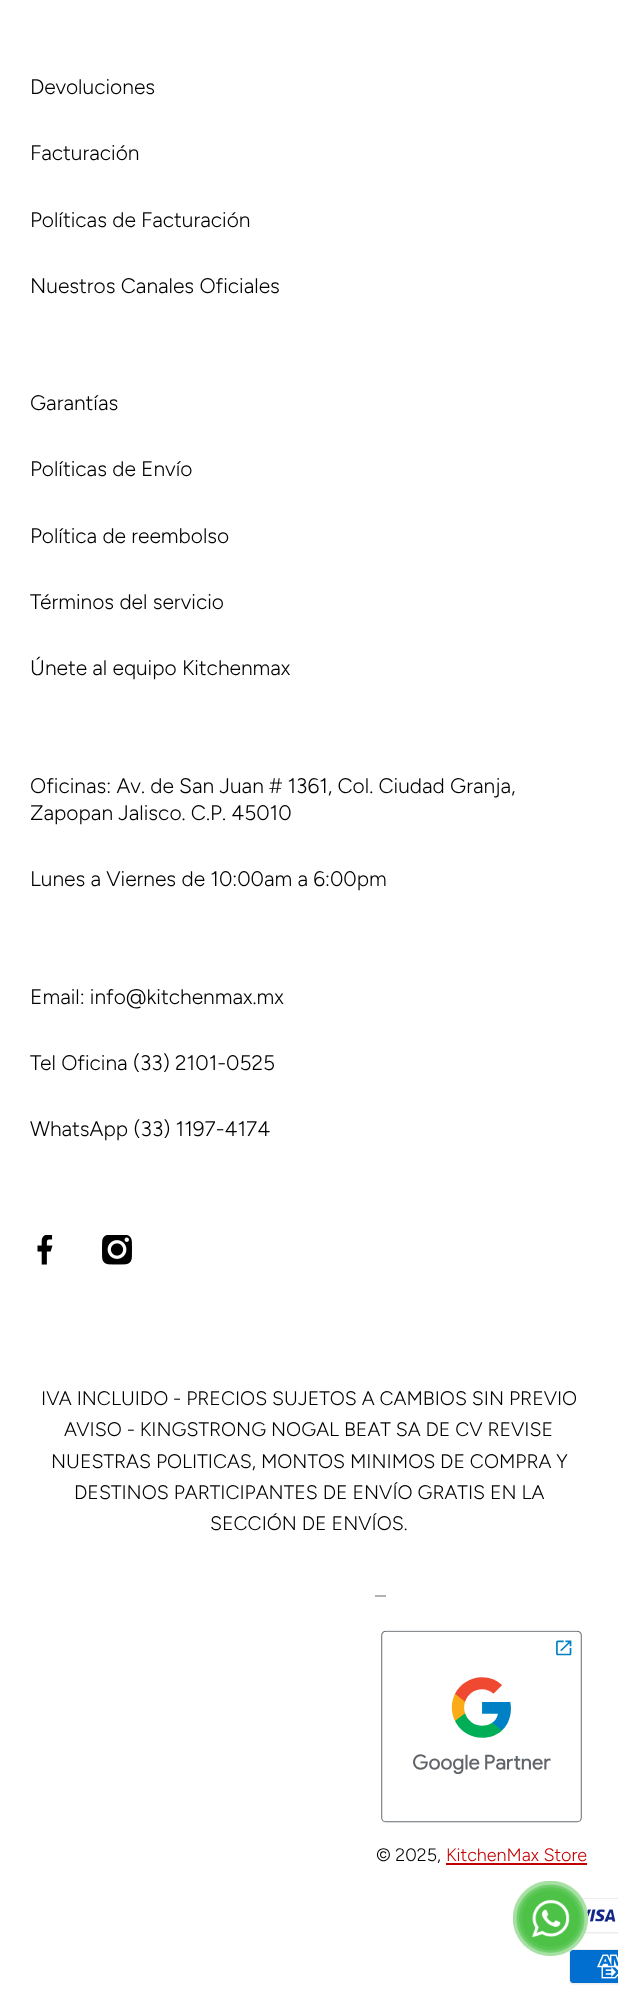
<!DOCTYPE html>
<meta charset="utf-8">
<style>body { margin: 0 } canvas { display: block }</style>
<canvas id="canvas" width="618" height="2014"></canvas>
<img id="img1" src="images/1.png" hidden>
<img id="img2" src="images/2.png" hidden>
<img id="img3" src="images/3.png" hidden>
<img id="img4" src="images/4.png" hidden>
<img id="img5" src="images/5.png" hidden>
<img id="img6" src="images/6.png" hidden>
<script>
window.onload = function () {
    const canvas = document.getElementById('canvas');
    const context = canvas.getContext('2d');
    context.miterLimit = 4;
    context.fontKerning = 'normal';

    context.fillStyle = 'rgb(255, 255, 255)';
    context.fillRect(0, 0, 618, 2014);
    context.drawImage(document.getElementById('img1'), 37, 1235, 16, 30);
    context.drawImage(document.getElementById('img2'), 102, 1235, 30, 30);
    context.fillStyle = 'rgb(179, 179, 179)';
    context.fillRect(375, 1595, 11, 2);
    context.drawImage(document.getElementById('img3'), 381, 1630, 201, 193);
    context.fillStyle = 'rgb(194, 0, 0)';
    context.fillRect(446, 1863, 141, 2);
    context.drawImage(document.getElementById('img4'), 582, 1898, 36, 36);
    context.drawImage(document.getElementById('img5'), 569, 1949, 49, 36);
    context.drawImage(document.getElementById('img6'), 513, 1881, 75, 75);
    context.font = '300 21px Figtree';
    context.fillStyle = 'rgb(0, 0, 0)';
    context.fillText('Devoluciones', 30, 94);
    context.fillText('Facturación', 30, 160);
    context.fillText('Políticas de Facturación', 30, 227);
    context.fillText('Nuestros Canales Oficiales', 30, 293);
    context.fillText('Garantías', 30, 410);
    context.fillText('Políticas de Envío', 30, 476);
    context.fillText('Política de reembolso', 30, 543);
    context.fillText('Términos del servicio', 30, 609);
    context.fillText('Únete al equipo Kitchenmax', 30, 675);
    context.fillText('Oficinas: Av. de San Juan # 1361, Col. Ciudad Granja,', 30, 793);
    context.fillText('Zapopan Jalisco. C.P. 45010', 30, 820);
    context.fillText('Lunes a Viernes de 10:00am a 6:00pm', 30, 886);
    context.fillText('Email: info@kitchenmax.mx', 30, 1004);
    context.fillText('Tel Oficina (33) 2101-0525', 30, 1070);
    context.fillText('WhatsApp (33) 1197-4174', 30, 1136);
    context.font = '300 19.5px Figtree';
    context.fillText('IVA INCLUIDO - PRECIOS SUJETOS A CAMBIOS SIN PREVIO', 41, 1405);
    context.fillText('AVISO - KINGSTRONG NOGAL BEAT SA DE CV REVISE', 64, 1436);
    context.fillText('NUESTRAS POLITICAS, MONTOS MINIMOS DE COMPRA Y', 51, 1468);
    context.fillText('DESTINOS PARTICIPANTES DE ENVÍO GRATIS EN LA', 74, 1499);
    context.fillText('SECCIÓN DE ENVÍOS.', 210, 1530);
    context.font = '300 18px Figtree';
    context.fillText('© 2025,', 376, 1861);
    context.fillStyle = 'rgb(194, 0, 0)';
    context.fillText('KitchenMax Store', 446, 1861);
};
</script>
